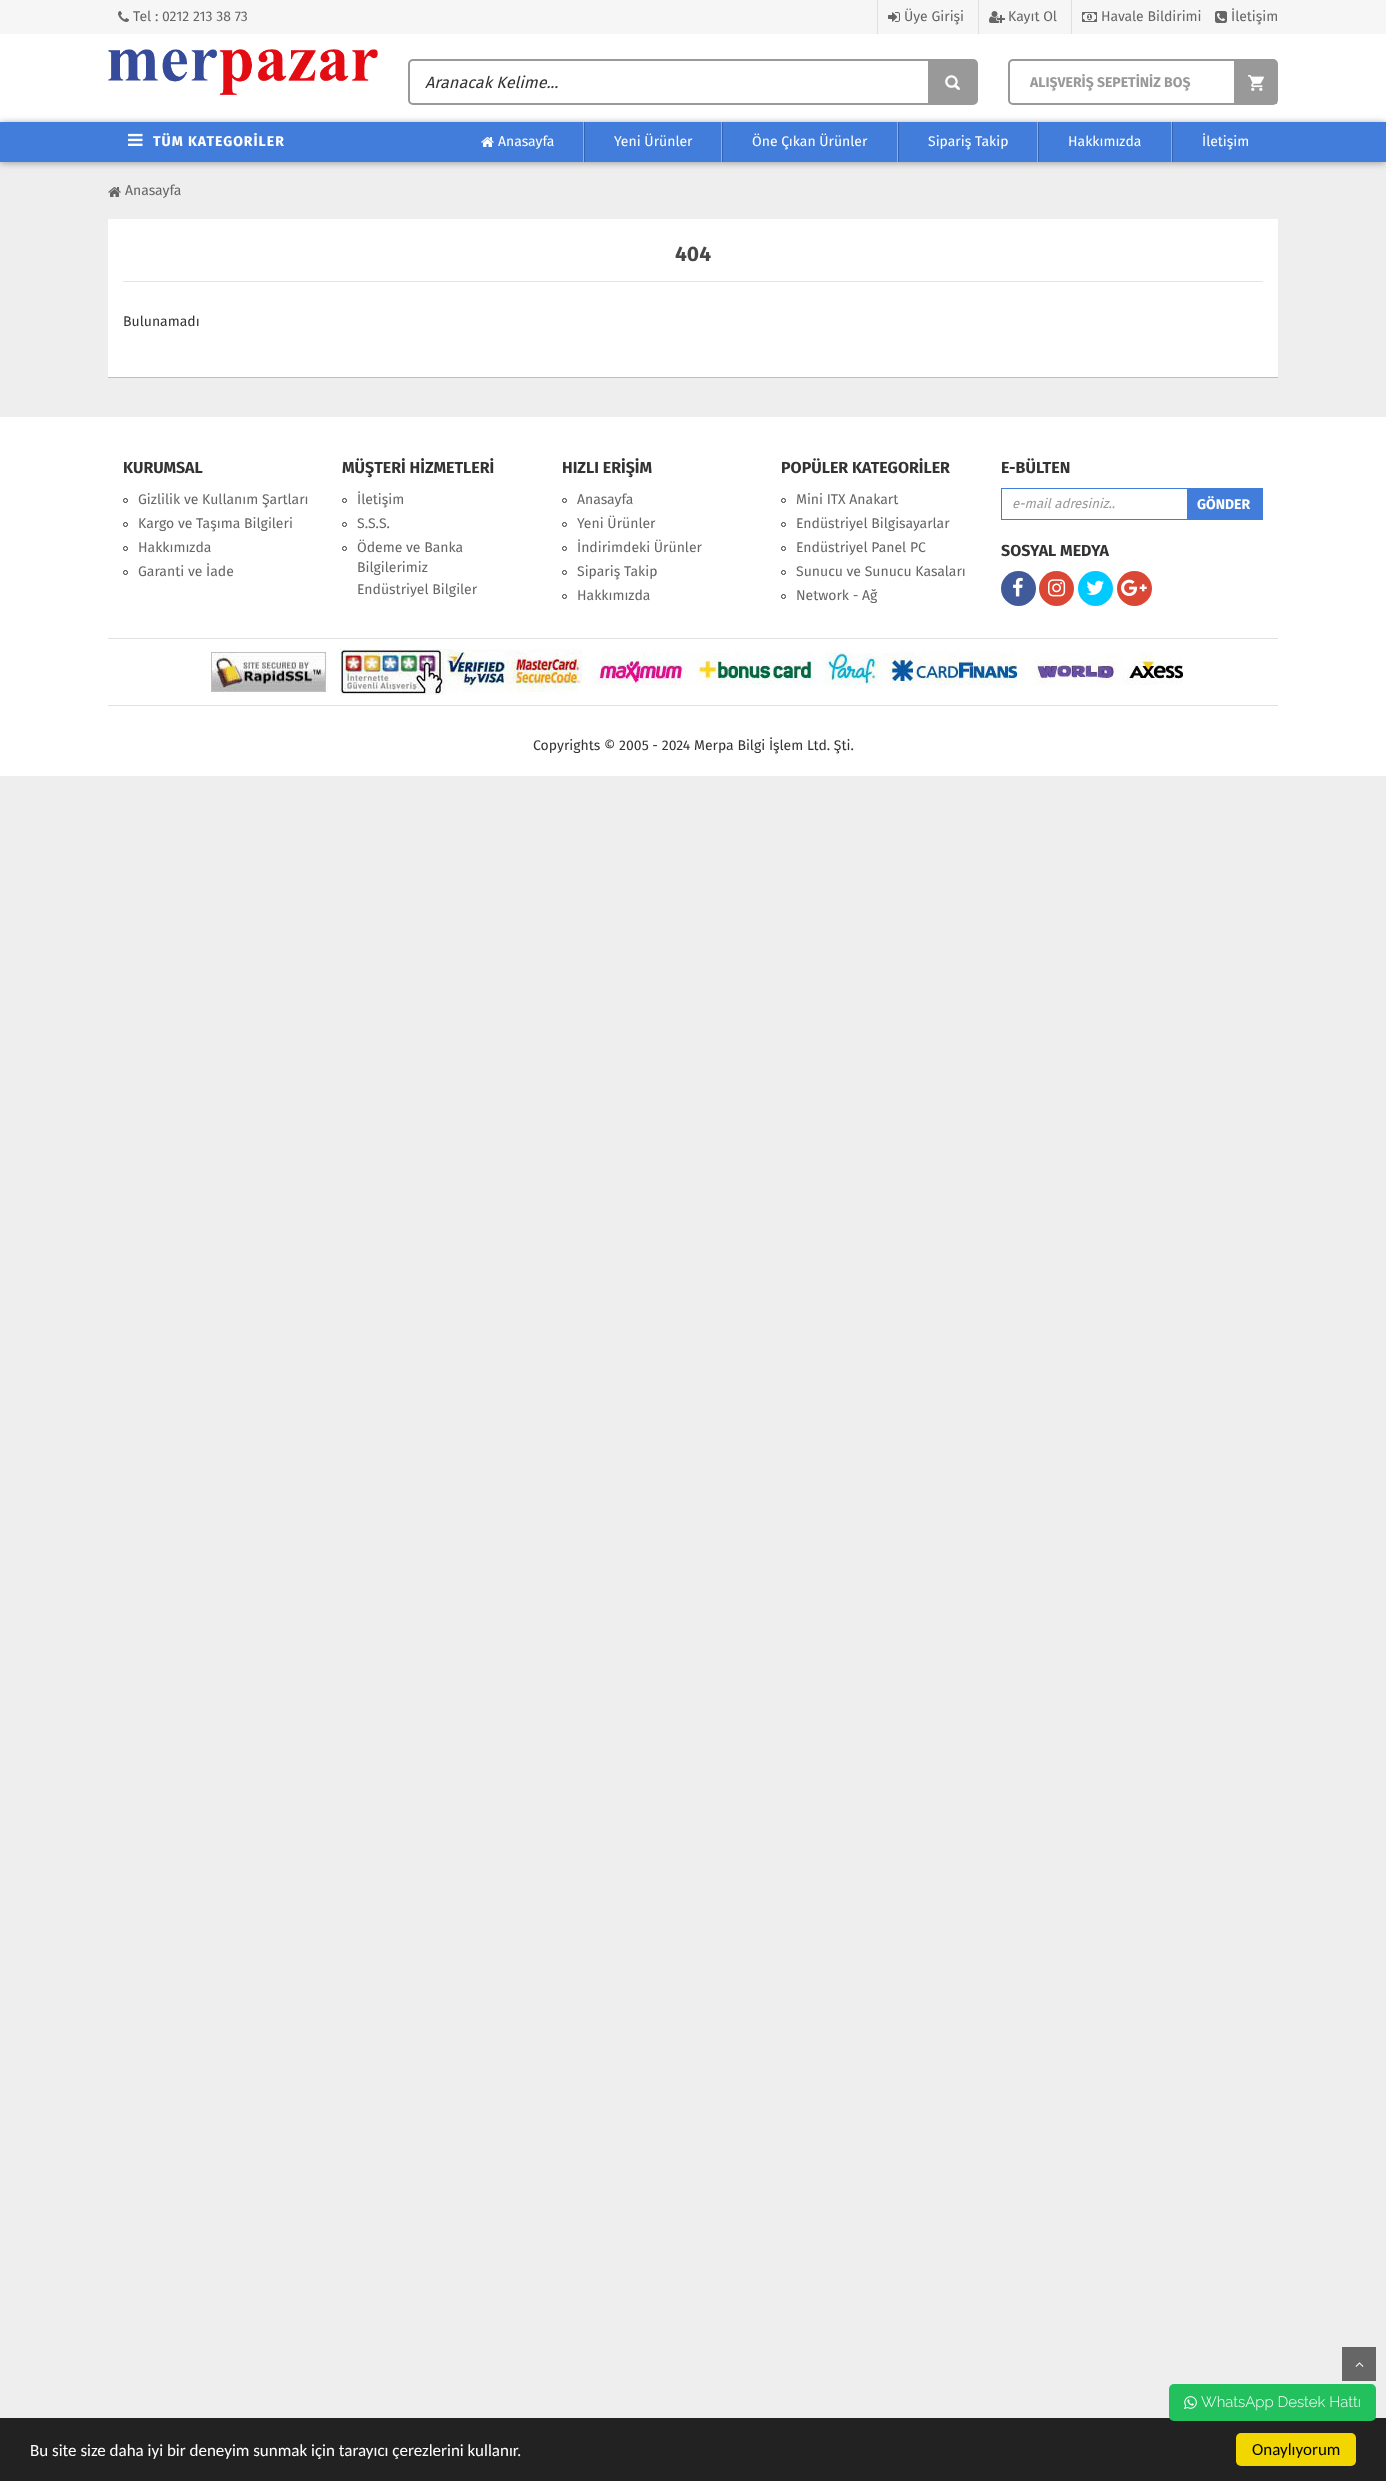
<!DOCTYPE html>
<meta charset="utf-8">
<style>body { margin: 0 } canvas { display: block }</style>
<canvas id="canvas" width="1386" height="2481"></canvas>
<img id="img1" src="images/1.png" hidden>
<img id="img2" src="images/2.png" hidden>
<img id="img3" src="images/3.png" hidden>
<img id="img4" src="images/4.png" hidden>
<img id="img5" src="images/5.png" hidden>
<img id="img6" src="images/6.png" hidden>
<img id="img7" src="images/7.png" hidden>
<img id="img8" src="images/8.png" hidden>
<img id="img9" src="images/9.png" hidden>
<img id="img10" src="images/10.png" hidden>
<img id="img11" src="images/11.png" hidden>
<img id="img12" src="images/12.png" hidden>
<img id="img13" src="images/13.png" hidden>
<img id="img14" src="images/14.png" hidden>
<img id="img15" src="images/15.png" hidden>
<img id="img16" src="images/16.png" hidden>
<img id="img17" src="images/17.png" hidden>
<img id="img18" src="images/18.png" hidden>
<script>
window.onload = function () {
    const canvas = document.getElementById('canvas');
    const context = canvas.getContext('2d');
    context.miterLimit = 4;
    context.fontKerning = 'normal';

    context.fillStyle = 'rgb(238, 238, 238)';
    context.fillRect(0, 0, 1386, 2481);
    context.fillStyle = 'rgb(255, 255, 255)';
    context.fillRect(0, 34, 1386, 88);
    context.fillStyle = 'rgb(246, 246, 246)';
    context.fillRect(0, 0, 1386, 34);
    context.drawImage(document.getElementById('img1'), 118, 11, 11, 11);
    context.fillStyle = 'rgb(224, 224, 224)';
    context.fillRect(877, 0, 1, 34);
    context.drawImage(document.getElementById('img2'), 888, 12, 12, 10);
    context.fillRect(978, 0, 1, 34);
    context.drawImage(document.getElementById('img3'), 989, 11, 16, 12);
    context.fillRect(1071, 0, 1, 34);
    context.drawImage(document.getElementById('img4'), 1082, 12, 15, 10);
    context.drawImage(document.getElementById('img5'), 1215, 11, 12, 12);
    context.drawImage(document.getElementById('img6'), 108, 49, 270, 46);
    context.beginPath();
    context.roundRect(409, 60, 568, 44, 4);
    context.strokeStyle = 'rgb(153, 153, 153)';
    context.lineWidth = 2;
    context.stroke();
    context.fillStyle = 'rgb(153, 153, 153)';
    context.fillRect(928, 61, 48, 42);
    context.drawImage(document.getElementById('img7'), 945, 75, 15, 15);
    context.beginPath();
    context.roundRect(1009, 60, 268, 44, 4);
    context.stroke();
    context.fillRect(1234, 61, 43, 43);
    context.drawImage(document.getElementById('img8'), 1248, 75, 16, 16);
    context.fillStyle = 'rgb(156, 156, 156)';
    context.filter = 'blur(3.5px)';
    context.beginPath();
    context.rect(0, 123, 1386, 40);
    context.fill();
    context.filter = 'none';
    context.fillStyle = 'rgb(67, 125, 219)';
    context.fillRect(0, 122, 1386, 40);
    context.drawImage(document.getElementById('img9'), 128, 133, 15, 13);
    context.fillStyle = 'rgb(138, 174, 233)';
    context.fillRect(583, 122, 1, 40);
    context.drawImage(document.getElementById('img10'), 481, 137, 13, 10);
    context.fillRect(721, 122, 1, 40);
    context.fillStyle = 'rgb(54, 100, 175)';
    context.fillRect(584, 122, 1, 40);
    context.fillStyle = 'rgb(138, 174, 233)';
    context.fillRect(897, 122, 1, 40);
    context.fillStyle = 'rgb(54, 100, 175)';
    context.fillRect(722, 122, 1, 40);
    context.fillStyle = 'rgb(138, 174, 233)';
    context.fillRect(1037, 122, 1, 40);
    context.fillStyle = 'rgb(54, 100, 175)';
    context.fillRect(898, 122, 1, 40);
    context.fillStyle = 'rgb(138, 174, 233)';
    context.fillRect(1171, 122, 1, 40);
    context.fillStyle = 'rgb(54, 100, 175)';
    context.fillRect(1038, 122, 1, 40);
    context.fillRect(1172, 122, 1, 40);
    context.drawImage(document.getElementById('img11'), 108, 187, 13, 10);
    context.fillStyle = 'rgba(0, 0, 0, 0.2)';
    context.filter = 'blur(0.5px)';
    context.beginPath();
    context.rect(108, 220, 1170, 158);
    context.fill();
    context.filter = 'none';
    context.fillStyle = 'rgb(255, 255, 255)';
    context.fillRect(108, 219, 1170, 158);
    context.fillStyle = 'rgb(229, 229, 229)';
    context.fillRect(123, 281, 1140, 1);
    context.fillStyle = 'rgb(255, 255, 255)';
    context.fillRect(0, 417, 1386, 359);
    context.beginPath();
    context.arc(125.5, 500.5, 2, 0, 2 * Math.PI);
    context.strokeStyle = 'rgb(51, 51, 51)';
    context.lineWidth = 1;
    context.stroke();
    context.beginPath();
    context.arc(125.5, 524.5, 2, 0, 2 * Math.PI);
    context.stroke();
    context.beginPath();
    context.arc(125.5, 548.5, 2, 0, 2 * Math.PI);
    context.stroke();
    context.beginPath();
    context.arc(125.5, 572.5, 2, 0, 2 * Math.PI);
    context.stroke();
    context.beginPath();
    context.arc(344.5, 500.5, 2, 0, 2 * Math.PI);
    context.stroke();
    context.beginPath();
    context.arc(344.5, 524.5, 2, 0, 2 * Math.PI);
    context.stroke();
    context.beginPath();
    context.arc(344.5, 548.5, 2, 0, 2 * Math.PI);
    context.stroke();
    context.beginPath();
    context.arc(564.5, 500.5, 2, 0, 2 * Math.PI);
    context.stroke();
    context.beginPath();
    context.arc(564.5, 524.5, 2, 0, 2 * Math.PI);
    context.stroke();
    context.beginPath();
    context.arc(564.5, 548.5, 2, 0, 2 * Math.PI);
    context.stroke();
    context.beginPath();
    context.arc(564.5, 572.5, 2, 0, 2 * Math.PI);
    context.stroke();
    context.beginPath();
    context.arc(564.5, 596.5, 2, 0, 2 * Math.PI);
    context.stroke();
    context.beginPath();
    context.arc(783.5, 500.5, 2, 0, 2 * Math.PI);
    context.stroke();
    context.beginPath();
    context.arc(783.5, 524.5, 2, 0, 2 * Math.PI);
    context.stroke();
    context.beginPath();
    context.arc(783.5, 548.5, 2, 0, 2 * Math.PI);
    context.stroke();
    context.beginPath();
    context.arc(783.5, 572.5, 2, 0, 2 * Math.PI);
    context.stroke();
    context.beginPath();
    context.arc(783.5, 596.5, 2, 0, 2 * Math.PI);
    context.stroke();
    context.strokeStyle = 'rgb(67, 125, 219)';
    context.strokeRect(1001.5, 488.5, 261, 31);
    context.fillStyle = 'rgb(67, 125, 219)';
    context.fillRect(1187, 489, 75, 30);
    context.fillStyle = 'rgb(65, 90, 153)';
    context.beginPath();
    context.arc(1018.5, 588.5, 17.5, 0, 2 * Math.PI);
    context.fill();
    context.drawImage(document.getElementById('img12'), 1013, 577, 10, 20);
    context.fillStyle = 'rgb(218, 71, 53)';
    context.beginPath();
    context.arc(1056.5, 588.5, 17.5, 0, 2 * Math.PI);
    context.fill();
    context.drawImage(document.getElementById('img13'), 1048, 579, 18, 18);
    context.fillStyle = 'rgb(0, 202, 255)';
    context.beginPath();
    context.arc(1095.5, 588.5, 17.5, 0, 2 * Math.PI);
    context.fill();
    context.drawImage(document.getElementById('img14'), 1086, 580, 18, 15);
    context.fillStyle = 'rgb(218, 71, 53)';
    context.beginPath();
    context.arc(1134.5, 588.5, 17.5, 0, 2 * Math.PI);
    context.fill();
    context.drawImage(document.getElementById('img15'), 1121, 579, 26, 17);
    context.fillStyle = 'rgb(225, 225, 225)';
    context.fillRect(108, 638, 1170, 1);
    context.fillRect(108, 705, 1170, 1);
    context.drawImage(document.getElementById('img16'), 207, 649, 976, 46);
    context.fillStyle = 'rgb(102, 102, 102)';
    context.fillRect(1342, 2347, 34, 34);
    context.drawImage(document.getElementById('img17'), 1355, 2362, 9, 5);
    context.fillStyle = 'rgb(34, 34, 34)';
    context.fillRect(0, 2418, 1386, 63);
    context.fillStyle = 'rgb(34, 193, 94)';
    context.beginPath();
    context.roundRect(1169, 2384, 207, 37, 5);
    context.fill();
    context.drawImage(document.getElementById('img18'), 1184, 2396, 13, 13);
    context.fillStyle = 'rgb(241, 214, 0)';
    context.beginPath();
    context.roundRect(1236, 2433, 120, 33, 5);
    context.fill();
    context.font = '14px Fira Sans';
    context.fillStyle = 'rgb(102, 102, 102)';
    context.fillText('Tel : 0212 213 38 73', 133, 21);
    context.fillText('Üye Girişi', 904, 21);
    context.fillText('Kayıt Ol', 1008, 21);
    context.fillText('Havale Bildirimi', 1101, 21);
    context.fillText('İletişim', 1231, 21);
    context.font = 'italic 16.25px Fira Sans';
    context.fillStyle = 'rgb(51, 51, 51)';
    context.fillText('Aranacak Kelime...', 425, 88);
    context.font = 'bold 14px Fira Sans';
    context.fillStyle = 'rgb(153, 153, 153)';
    context.fillText('ALIŞVERİŞ SEPETİNİZ BOŞ', 1030, 87);
    context.letterSpacing = '1px';
    context.fillStyle = 'rgb(255, 255, 255)';
    context.fillText('TÜM KATEGORİLER', 153, 146);
    context.letterSpacing = '0px';
    context.font = '14px Fira Sans';
    context.fillText('Anasayfa', 498, 146);
    context.fillText('Yeni Ürünler', 614, 146);
    context.fillText('Öne Çıkan Ürünler', 752, 146);
    context.fillText('Sipariş Takip', 928, 146);
    context.fillText('Hakkımızda', 1068, 146);
    context.fillText('İletişim', 1202, 146);
    context.fillStyle = 'rgb(102, 102, 102)';
    context.fillText('Anasayfa', 125, 195);
    context.font = 'bold 21px Fira Sans';
    context.fillStyle = 'rgb(72, 72, 72)';
    context.fillText('404', 675, 261);
    context.font = '14px Fira Sans';
    context.fillStyle = 'rgb(51, 51, 51)';
    context.fillText('Bulunamadı', 123, 326);
    context.font = 'bold 16px Fira Sans';
    context.fillText('KURUMSAL', 123, 473);
    context.font = '14px Fira Sans';
    context.fillStyle = 'rgb(102, 102, 102)';
    context.fillText('Gizlilik ve Kullanım Şartları', 138, 504);
    context.fillText('Kargo ve Taşıma Bilgileri', 138, 528);
    context.fillText('Hakkımızda', 138, 552);
    context.fillText('Garanti ve İade', 138, 576);
    context.font = 'bold 16px Fira Sans';
    context.fillStyle = 'rgb(51, 51, 51)';
    context.fillText('MÜŞTERİ HİZMETLERİ', 342, 473);
    context.font = '14px Fira Sans';
    context.fillStyle = 'rgb(102, 102, 102)';
    context.fillText('İletişim', 357, 504);
    context.fillText('S.S.S.', 357, 528);
    context.fillText('Ödeme ve Banka', 357, 552);
    context.fillText('Bilgilerimiz', 357, 572);
    context.fillText('Endüstriyel Bilgiler', 357, 594);
    context.font = 'bold 16px Fira Sans';
    context.fillStyle = 'rgb(51, 51, 51)';
    context.fillText('HIZLI ERİŞİM', 562, 473);
    context.font = '14px Fira Sans';
    context.fillStyle = 'rgb(102, 102, 102)';
    context.fillText('Anasayfa', 577, 504);
    context.fillText('Yeni Ürünler', 577, 528);
    context.fillText('İndirimdeki Ürünler', 577, 552);
    context.fillText('Sipariş Takip', 577, 576);
    context.fillText('Hakkımızda', 577, 600);
    context.font = 'bold 16px Fira Sans';
    context.fillStyle = 'rgb(51, 51, 51)';
    context.fillText('POPÜLER KATEGORİLER', 781, 473);
    context.font = '14px Fira Sans';
    context.fillStyle = 'rgb(102, 102, 102)';
    context.fillText('Mini ITX Anakart', 796, 504);
    context.fillText('Endüstriyel Bilgisayarlar', 796, 528);
    context.fillText('Endüstriyel Panel PC', 796, 552);
    context.fillText('Sunucu ve Sunucu Kasaları', 796, 576);
    context.fillText('Network - Ağ', 796, 600);
    context.font = 'bold 16px Fira Sans';
    context.fillStyle = 'rgb(51, 51, 51)';
    context.fillText('E-BÜLTEN', 1001, 473);
    context.font = 'italic 13.25px Fira Sans';
    context.fillStyle = 'rgb(153, 153, 153)';
    context.fillText('e-mail adresiniz..', 1012, 508);
    context.font = 'bold 14px Fira Sans';
    context.fillStyle = 'rgb(255, 255, 255)';
    context.fillText('GÖNDER', 1197, 509);
    context.font = 'bold 16px Fira Sans';
    context.fillStyle = 'rgb(51, 51, 51)';
    context.fillText('SOSYAL MEDYA', 1001, 556);
    context.font = '14px Fira Sans';
    context.fillText('Copyrights © 2005 - 2024 Merpa Bilgi İşlem Ltd. Şti.', 533, 750);
    context.font = '300 15px Raleway';
    context.fillStyle = 'rgb(255, 255, 255)';
    context.fillText('WhatsApp Destek Hattı', 1201, 2407);
    context.font = '17px Carlito';
    context.fillText('Bu site size daha iyi bir deneyim sunmak için tarayıcı çerezlerini kullanır.', 30, 2456);
    context.fillStyle = 'rgb(0, 0, 0)';
    context.fillText('Onaylıyorum', 1252, 2455);
};
</script>
